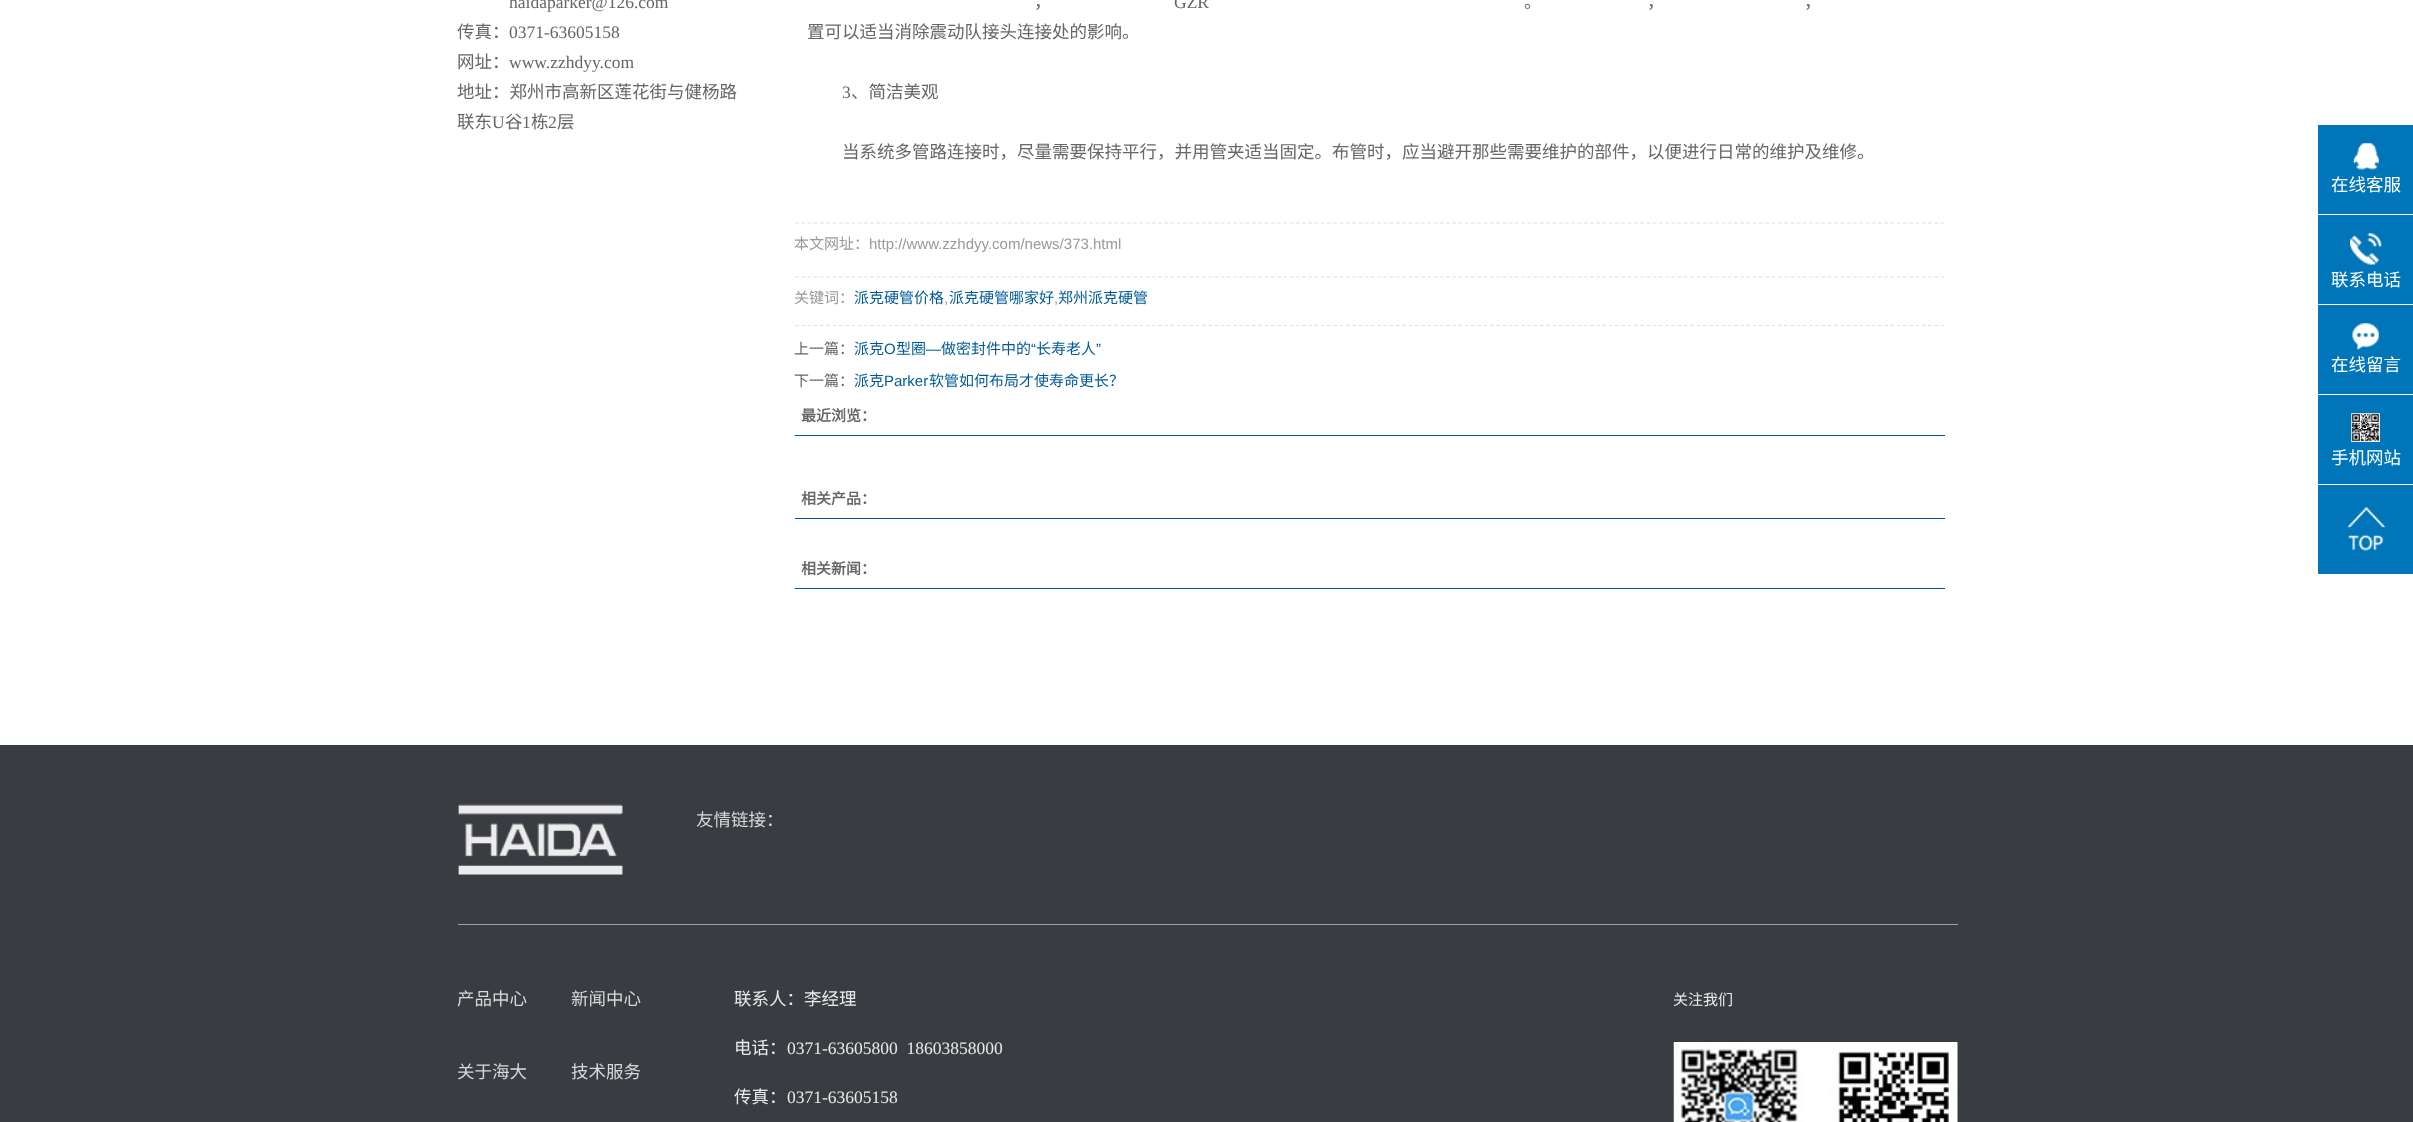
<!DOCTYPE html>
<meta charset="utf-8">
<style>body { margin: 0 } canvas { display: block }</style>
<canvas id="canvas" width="2413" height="1122"></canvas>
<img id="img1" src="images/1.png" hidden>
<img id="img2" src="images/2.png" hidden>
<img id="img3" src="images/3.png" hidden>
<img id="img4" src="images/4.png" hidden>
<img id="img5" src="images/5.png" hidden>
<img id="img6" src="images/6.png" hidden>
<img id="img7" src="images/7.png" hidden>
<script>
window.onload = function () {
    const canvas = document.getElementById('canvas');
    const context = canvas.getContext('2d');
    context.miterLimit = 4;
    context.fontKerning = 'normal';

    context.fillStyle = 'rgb(255, 255, 255)';
    context.fillRect(0, 0, 2413, 1122);
    context.beginPath();
    context.moveTo(795, 223);
    context.lineTo(1945, 223);
    context.strokeStyle = 'rgb(224, 225, 220)';
    context.lineWidth = 1.2;
    context.setLineDash([3.75, 2.51]);
    context.stroke();
    context.beginPath();
    context.moveTo(795, 277);
    context.lineTo(1945, 277);
    context.stroke();
    context.beginPath();
    context.moveTo(795, 325.5);
    context.lineTo(1945, 325.5);
    context.stroke();
    context.fillStyle = 'rgb(2, 80, 154)';
    context.fillRect(795, 435, 1150, 1);
    context.fillRect(795, 518, 1150, 1);
    context.fillRect(795, 588, 1150, 1);
    context.fillStyle = 'rgb(0, 117, 185)';
    context.fillRect(2318, 125, 95, 89);
    context.drawImage(document.getElementById('img1'), 2353, 143, 26, 27);
    context.fillRect(2318, 215, 95, 89);
    context.drawImage(document.getElementById('img2'), 2350, 233, 32, 32);
    context.fillRect(2318, 305, 95, 89);
    context.drawImage(document.getElementById('img3'), 2352, 323, 27, 27);
    context.fillRect(2318, 395, 95, 89);
    context.drawImage(document.getElementById('img4'), 2351, 413, 29, 29);
    context.fillRect(2318, 485, 95, 89);
    context.drawImage(document.getElementById('img5'), 2347, 506, 39, 45);
    context.fillStyle = 'rgb(57, 60, 65)';
    context.fillRect(0, 745, 2413, 377);
    context.fillStyle = 'rgb(156, 158, 160)';
    context.fillRect(458, 924, 1500, 1);
    context.drawImage(document.getElementById('img6'), 457, 804, 166, 72);
    context.drawImage(document.getElementById('img7'), 1673, 1042, 285, 80);
    context.font = '17.5px Liberation Serif';
    context.fillStyle = 'rgb(102, 102, 102)';
    context.fillText('haidaparker@126.com', 509, 8);
    context.font = '17.5px Noto Sans CJK SC';
    context.fillText('传真：', 457, 38);
    context.font = '17.5px Liberation Serif';
    context.fillText('0371-63605158', 509, 38);
    context.font = '17.5px Noto Sans CJK SC';
    context.fillText('网址：', 457, 68);
    context.font = '17.5px Liberation Serif';
    context.fillText('www.zzhdyy.com', 509, 68);
    context.font = '17.5px Noto Sans CJK SC';
    context.fillText('地址：郑州市高新区莲花街与健杨路', 457, 98);
    context.fillText('联东', 457, 128);
    context.font = '17.5px Liberation Serif';
    context.fillText('U', 492, 128);
    context.font = '17.5px Noto Sans CJK SC';
    context.fillText('谷', 505, 128);
    context.font = '17.5px Liberation Serif';
    context.fillText('1', 522, 128);
    context.font = '17.5px Noto Sans CJK SC';
    context.fillText('栋', 531, 128);
    context.font = '17.5px Liberation Serif';
    context.fillText('2', 548, 128);
    context.font = '17.5px Noto Sans CJK SC';
    context.fillText('层', 557, 128);
    context.fillText('，', 1034, 8);
    context.font = '17.5px Liberation Serif';
    context.fillText('GZR', 1174, 8);
    context.font = '17.5px Noto Sans CJK SC';
    context.fillText('。', 1524, 8);
    context.fillText('，', 1647, 8);
    context.fillText('，', 1804, 8);
    context.fillText('置可以适当消除震动队接头连接处的影响。', 807, 38);
    context.font = '17.5px Liberation Serif';
    context.fillText('3', 842, 98);
    context.font = '17.5px Noto Sans CJK SC';
    context.fillText('、简洁美观', 851, 98);
    context.fillText('当系统多管路连接时，尽量需要保持平行，并用管夹适当固定。布管时，应当避开那些需要维护的部件，以便进行日常的维护及维修。', 842, 158);
    context.font = '15px Noto Sans CJK SC';
    context.fillStyle = 'rgb(153, 153, 153)';
    context.fillText('本文网址：', 794, 249);
    context.font = '15px Liberation Sans';
    context.fillText('http://www.zzhdyy.com/news/373.html', 869, 249);
    context.font = '15px Noto Sans CJK SC';
    context.fillText('关键词：', 794, 303);
    context.fillStyle = 'rgb(0, 90, 152)';
    context.fillText('派克硬管价格', 854, 303);
    context.font = '15px Liberation Sans';
    context.fillStyle = 'rgb(153, 153, 153)';
    context.fillText(',', 944, 303);
    context.font = '15px Noto Sans CJK SC';
    context.fillStyle = 'rgb(0, 90, 152)';
    context.fillText('派克硬管哪家好', 949, 303);
    context.font = '15px Liberation Sans';
    context.fillStyle = 'rgb(153, 153, 153)';
    context.fillText(',', 1054, 303);
    context.font = '15px Noto Sans CJK SC';
    context.fillStyle = 'rgb(0, 90, 152)';
    context.fillText('郑州派克硬管', 1058, 303);
    context.fillStyle = 'rgb(102, 102, 102)';
    context.fillText('上一篇：', 794, 354);
    context.fillStyle = 'rgb(0, 90, 152)';
    context.fillText('派克', 854, 354);
    context.font = '15px Liberation Sans';
    context.fillText('O', 884, 354);
    context.font = '15px Noto Sans CJK SC';
    context.fillText('型圈', 896, 354);
    context.font = '15px Liberation Sans';
    context.fillText('“', 1031, 354);
    context.font = '15px Noto Sans CJK SC';
    context.fillText('长寿老人', 1036, 354);
    context.font = '15px Liberation Sans';
    context.fillText('”', 1096, 354);
    context.fillText('—', 926, 354);
    context.font = '15px Noto Sans CJK SC';
    context.fillText('做密封件中的', 941, 354);
    context.fillStyle = 'rgb(102, 102, 102)';
    context.fillText('下一篇：', 794, 386);
    context.fillStyle = 'rgb(0, 90, 152)';
    context.fillText('派克', 854, 386);
    context.font = '15px Liberation Sans';
    context.fillText('Parker', 884, 386);
    context.font = '15px Noto Sans CJK SC';
    context.fillText('软管如何布局才使寿命更长？', 929, 386);
    context.font = 'bold 15px Noto Sans CJK SC';
    context.fillStyle = 'rgb(102, 102, 102)';
    context.fillText('最近浏览：', 801, 421);
    context.fillText('相关产品：', 801, 504);
    context.fillText('相关新闻：', 801, 574);
    context.font = '17.5px Noto Sans CJK SC';
    context.fillStyle = 'rgb(255, 255, 255)';
    context.fillText('在线客服', 2331, 191);
    context.fillText('联系电话', 2331, 286);
    context.fillText('在线留言', 2331, 371);
    context.fillText('手机网站', 2331, 464);
    context.fillStyle = 'rgb(215, 216, 217)';
    context.fillText('友情链接：', 696, 826);
    context.fillText('产品中心', 457, 1005);
    context.fillText('新闻中心', 571, 1005);
    context.fillText('关于海大', 457, 1078);
    context.fillText('技术服务', 571, 1078);
    context.fillStyle = 'rgb(233, 234, 234)';
    context.fillText('联系人：李经理', 734, 1005);
    context.fillText('电话：', 734, 1054);
    context.font = '17.5px Liberation Serif';
    context.fillText('0371-63605800  18603858000', 787, 1054);
    context.font = '17.5px Noto Sans CJK SC';
    context.fillText('传真：', 734, 1103);
    context.font = '17.5px Liberation Serif';
    context.fillText('0371-63605158', 787, 1103);
    context.font = '15px Noto Sans CJK SC';
    context.fillText('关注我们', 1673, 1005);
};
</script>
